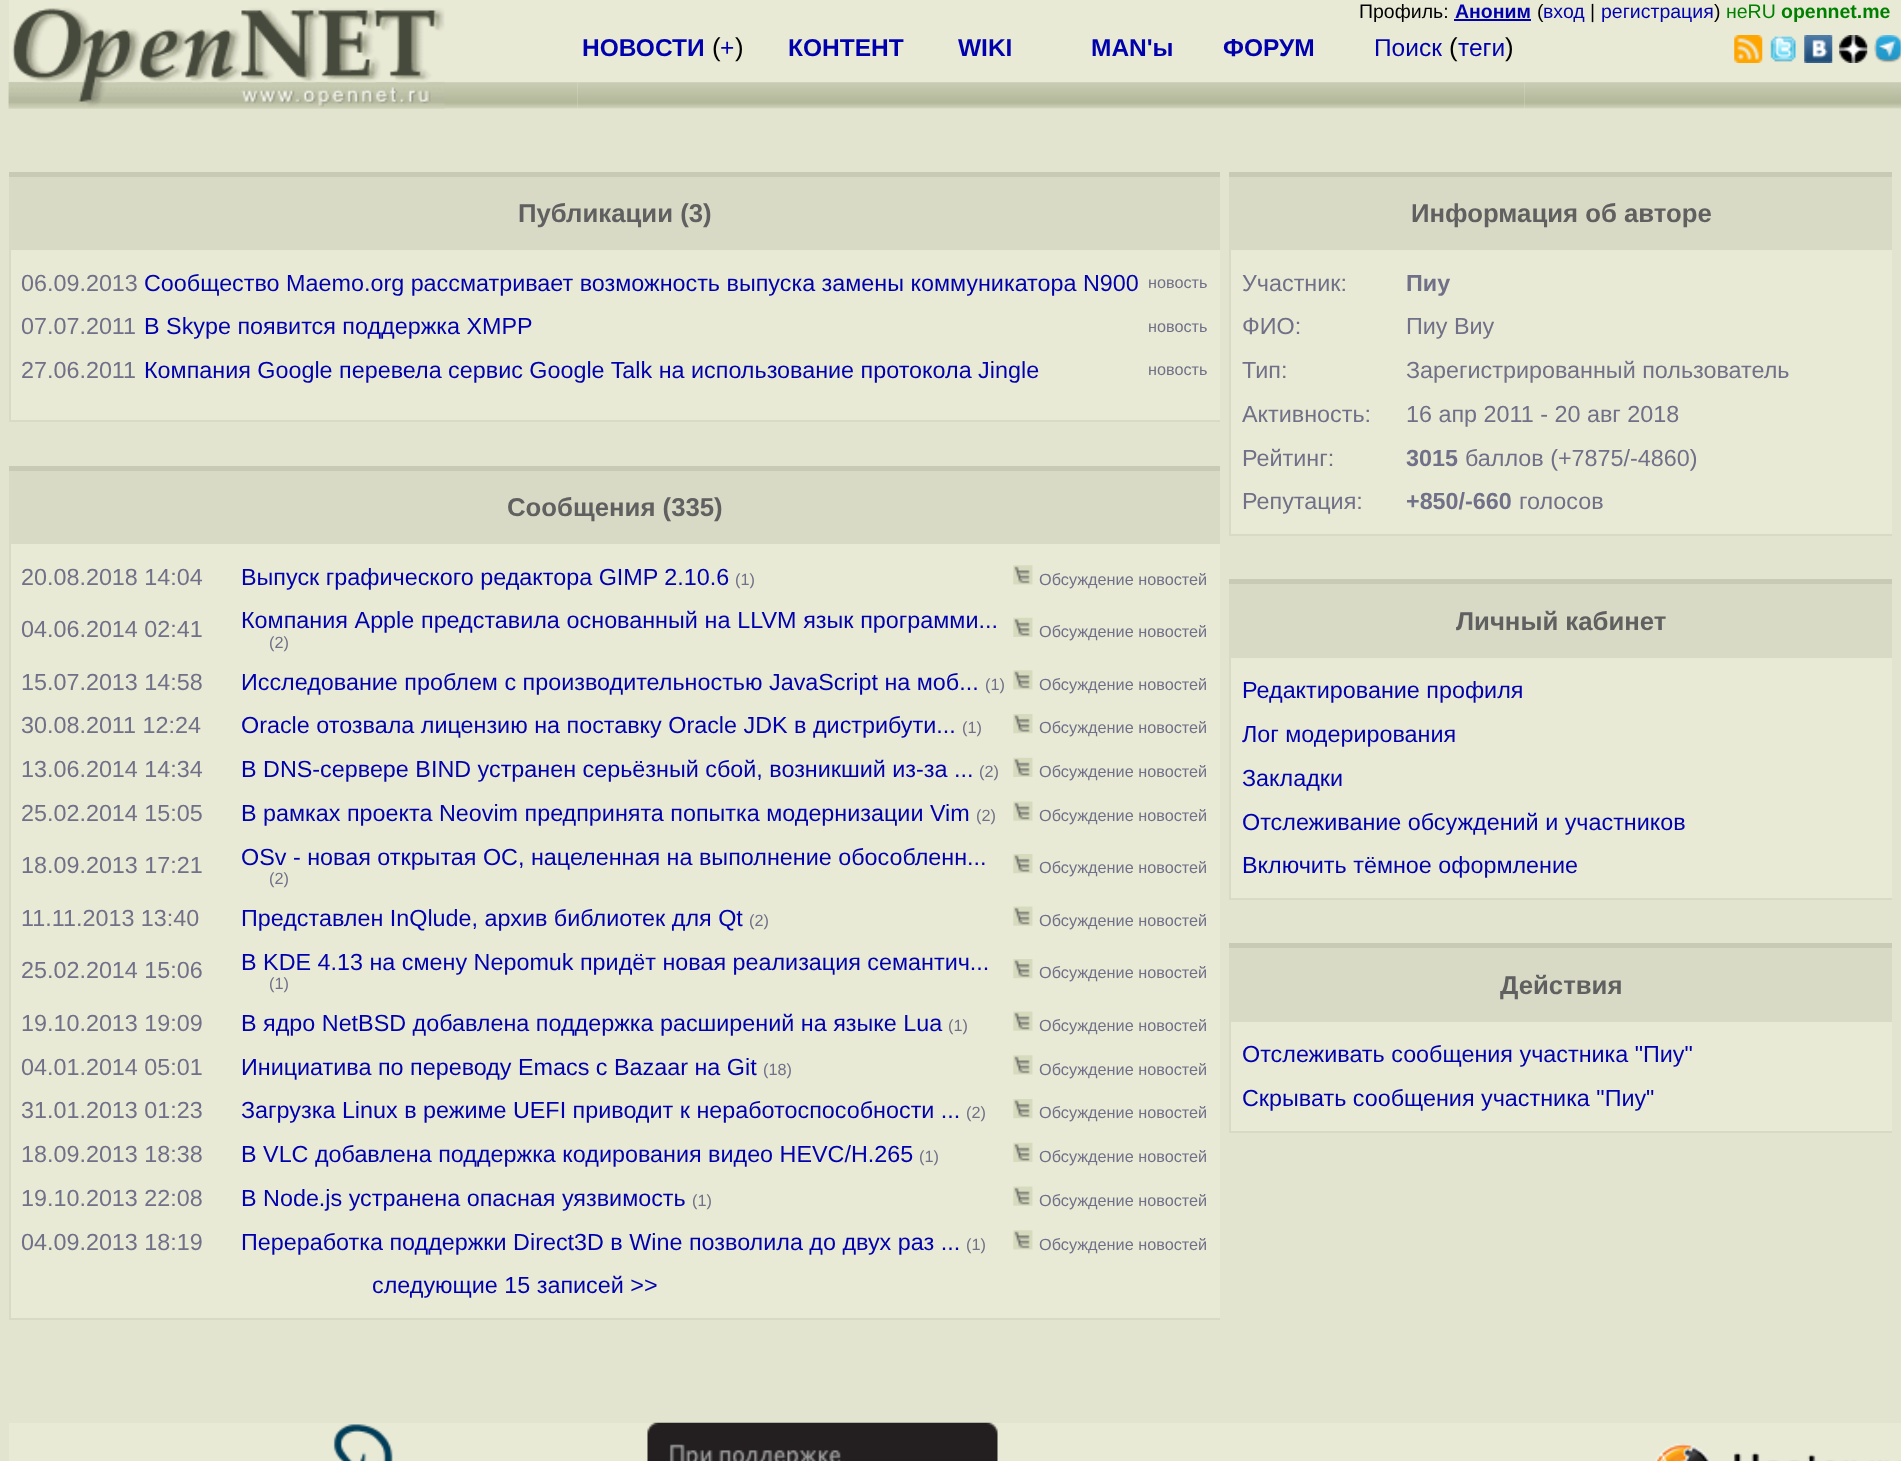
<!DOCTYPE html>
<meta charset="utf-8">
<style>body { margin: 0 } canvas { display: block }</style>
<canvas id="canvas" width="1901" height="1461"></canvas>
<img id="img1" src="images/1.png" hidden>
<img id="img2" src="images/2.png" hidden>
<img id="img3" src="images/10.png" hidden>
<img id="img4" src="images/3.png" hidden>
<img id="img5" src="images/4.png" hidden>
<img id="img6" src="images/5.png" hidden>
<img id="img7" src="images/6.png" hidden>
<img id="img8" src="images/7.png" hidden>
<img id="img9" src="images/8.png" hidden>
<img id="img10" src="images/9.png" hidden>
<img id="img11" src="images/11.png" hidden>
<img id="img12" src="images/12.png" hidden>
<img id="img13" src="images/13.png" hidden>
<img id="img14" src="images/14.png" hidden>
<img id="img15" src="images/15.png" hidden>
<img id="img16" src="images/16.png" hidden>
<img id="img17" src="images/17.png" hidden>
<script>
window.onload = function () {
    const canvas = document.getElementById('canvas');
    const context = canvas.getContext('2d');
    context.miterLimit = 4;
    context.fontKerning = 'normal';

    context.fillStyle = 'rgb(227, 228, 208)';
    context.fillRect(0, 0, 1901, 1461);
    context.fillStyle = 'rgb(233, 234, 214)';
    context.fillRect(9, 0, 1892, 4);
    context.fillRect(9, 4, 1892, 105);
    context.fillStyle = 'rgb(0, 0, 173)';
    context.fillRect(1454, 19, 77, 2);
    context.drawImage(document.getElementById('img1'), 8, 82, 482, 27);
    context.drawImage(document.getElementById('img2'), 8, 7, 437, 102);
    context.drawImage(document.getElementById('img3'), 490, 82, 88, 27);
    context.drawImage(document.getElementById('img4'), 577, 82, 947, 27);
    context.drawImage(document.getElementById('img5'), 1524, 82, 377, 27);
    context.drawImage(document.getElementById('img6'), 1734, 35, 29, 28);
    context.drawImage(document.getElementById('img7'), 1770, 36, 26, 26);
    context.drawImage(document.getElementById('img8'), 1804, 35, 29, 28);
    context.drawImage(document.getElementById('img9'), 1839, 35, 29, 28);
    context.drawImage(document.getElementById('img10'), 1874, 35, 27, 28);
    context.fillStyle = 'rgb(217, 218, 198)';
    context.fillRect(9, 177, 1211, 73);
    context.fillStyle = 'rgb(201, 202, 182)';
    context.fillRect(9, 172, 1211, 5);
    context.fillStyle = 'rgb(233, 234, 214)';
    context.fillRect(11, 250, 1209, 170);
    context.fillStyle = 'rgb(217, 218, 198)';
    context.fillRect(9, 420, 1211, 2);
    context.fillRect(9, 250, 2, 172);
    context.fillRect(9, 471, 1211, 73);
    context.fillStyle = 'rgb(201, 202, 182)';
    context.fillRect(9, 466, 1211, 5);
    context.fillStyle = 'rgb(233, 234, 214)';
    context.fillRect(11, 544, 1209, 774);
    context.fillStyle = 'rgb(217, 218, 198)';
    context.fillRect(9, 1318, 1211, 2);
    context.fillRect(9, 544, 2, 776);
    context.drawImage(document.getElementById('img11'), 1013, 565, 20, 20);
    context.drawImage(document.getElementById('img12'), 1013, 617, 20, 20);
    context.drawImage(document.getElementById('img11'), 1013, 670, 20, 20);
    context.drawImage(document.getElementById('img13'), 1013, 714, 20, 20);
    context.drawImage(document.getElementById('img12'), 1013, 757, 20, 20);
    context.drawImage(document.getElementById('img14'), 1013, 801, 20, 20);
    context.drawImage(document.getElementById('img13'), 1013, 854, 20, 20);
    context.drawImage(document.getElementById('img14'), 1013, 906, 20, 20);
    context.drawImage(document.getElementById('img13'), 1013, 959, 20, 20);
    context.drawImage(document.getElementById('img14'), 1013, 1011, 20, 20);
    context.drawImage(document.getElementById('img11'), 1013, 1055, 20, 20);
    context.drawImage(document.getElementById('img13'), 1013, 1099, 20, 20);
    context.drawImage(document.getElementById('img12'), 1013, 1142, 20, 20);
    context.drawImage(document.getElementById('img14'), 1013, 1186, 20, 20);
    context.drawImage(document.getElementById('img11'), 1013, 1230, 20, 20);
    context.fillRect(1229, 177, 663, 73);
    context.fillStyle = 'rgb(201, 202, 182)';
    context.fillRect(1229, 172, 663, 5);
    context.fillStyle = 'rgb(233, 234, 214)';
    context.fillRect(1231, 250, 661, 284);
    context.fillStyle = 'rgb(217, 218, 198)';
    context.fillRect(1229, 534, 663, 2);
    context.fillRect(1229, 250, 2, 286);
    context.fillRect(1229, 584, 663, 74);
    context.fillStyle = 'rgb(201, 202, 182)';
    context.fillRect(1229, 579, 663, 5);
    context.fillStyle = 'rgb(233, 234, 214)';
    context.fillRect(1231, 658, 661, 240);
    context.fillStyle = 'rgb(217, 218, 198)';
    context.fillRect(1229, 898, 663, 2);
    context.fillRect(1229, 658, 2, 242);
    context.fillRect(1229, 948, 663, 74);
    context.fillStyle = 'rgb(201, 202, 182)';
    context.fillRect(1229, 943, 663, 5);
    context.fillStyle = 'rgb(233, 234, 214)';
    context.fillRect(1231, 1022, 661, 109);
    context.fillStyle = 'rgb(217, 218, 198)';
    context.fillRect(1229, 1131, 663, 2);
    context.fillRect(1229, 1022, 2, 110);
    context.fillStyle = 'rgb(233, 234, 214)';
    context.fillRect(9, 1423, 1892, 38);
    context.drawImage(document.getElementById('img15'), 333, 1424, 60, 37);
    context.drawImage(document.getElementById('img16'), 647, 1422, 351, 39);
    context.drawImage(document.getElementById('img17'), 1655, 1443, 246, 18);
    context.font = '19.5px Liberation Sans';
    context.fillStyle = 'rgb(0, 0, 0)';
    context.fillText('Профиль:', 1359, 18);
    context.font = 'bold 19.5px Liberation Sans';
    context.fillStyle = 'rgb(0, 0, 173)';
    context.fillText('Аноним', 1455, 18);
    context.font = '19.5px Liberation Sans';
    context.fillStyle = 'rgb(0, 0, 0)';
    context.fillText('(', 1537, 18);
    context.fillStyle = 'rgb(0, 0, 173)';
    context.fillText('вход', 1543, 18);
    context.fillStyle = 'rgb(0, 0, 0)';
    context.fillText('|', 1590, 18);
    context.fillStyle = 'rgb(0, 0, 173)';
    context.fillText('регистрация', 1601, 18);
    context.fillStyle = 'rgb(0, 0, 0)';
    context.fillText(')', 1714, 18);
    context.fillStyle = 'rgb(0, 128, 0)';
    context.fillText('неRU', 1726, 18);
    context.font = 'bold 19.5px Liberation Sans';
    context.fillText('opennet.me', 1781, 18);
    context.font = 'bold 24.5px Liberation Sans';
    context.fillStyle = 'rgb(0, 0, 173)';
    context.fillText('НОВОСТИ', 582, 56);
    context.font = '25.75px Liberation Sans';
    context.fillStyle = 'rgb(0, 0, 0)';
    context.fillText('(', 712, 56);
    context.font = '24.5px Liberation Sans';
    context.fillStyle = 'rgb(0, 0, 173)';
    context.fillText('+', 720, 56);
    context.font = '25.75px Liberation Sans';
    context.fillStyle = 'rgb(0, 0, 0)';
    context.fillText(')', 735, 56);
    context.font = 'bold 24.5px Liberation Sans';
    context.fillStyle = 'rgb(0, 0, 173)';
    context.fillText('КОНТЕНТ', 788, 56);
    context.fillText('WIKI', 958, 56);
    context.fillText('MAN\'ы', 1091, 56);
    context.fillText('ФОРУМ', 1223, 56);
    context.font = '24.5px Liberation Sans';
    context.fillText('Поиск', 1374, 56);
    context.font = '25.75px Liberation Sans';
    context.fillStyle = 'rgb(0, 0, 0)';
    context.fillText('(', 1449, 56);
    context.font = '24.5px Liberation Sans';
    context.fillStyle = 'rgb(0, 0, 173)';
    context.fillText('теги', 1458, 56);
    context.font = '25.75px Liberation Sans';
    context.fillStyle = 'rgb(0, 0, 0)';
    context.fillText(')', 1505, 56);
    context.font = 'bold 25.75px Liberation Sans';
    context.fillStyle = 'rgb(96, 96, 96)';
    context.fillText('Публикации (3)', 518, 222);
    context.font = '23.35px Liberation Sans';
    context.fillStyle = 'rgb(112, 112, 136)';
    context.fillText('06.09.2013', 21, 291);
    context.fillStyle = 'rgb(0, 0, 173)';
    context.fillText('Сообщество Maemo.org рассматривает возможность выпуска замены коммуникатора N900', 144, 291);
    context.font = '16.25px Liberation Sans';
    context.fillStyle = 'rgb(112, 112, 136)';
    context.fillText('новость', 1148, 288);
    context.font = '23.35px Liberation Sans';
    context.fillText('07.07.2011', 21, 334);
    context.fillStyle = 'rgb(0, 0, 173)';
    context.fillText('В Skype появится поддержка XMPP', 144, 334);
    context.font = '16.25px Liberation Sans';
    context.fillStyle = 'rgb(112, 112, 136)';
    context.fillText('новость', 1148, 332);
    context.font = '23.35px Liberation Sans';
    context.fillText('27.06.2011', 21, 378);
    context.fillStyle = 'rgb(0, 0, 173)';
    context.fillText('Компания Google перевела сервис Google Talk на использование протокола Jingle', 144, 378);
    context.font = '16.25px Liberation Sans';
    context.fillStyle = 'rgb(112, 112, 136)';
    context.fillText('новость', 1148, 375);
    context.font = 'bold 25.75px Liberation Sans';
    context.fillStyle = 'rgb(96, 96, 96)';
    context.fillText('Сообщения (335)', 507, 516);
    context.font = '23.35px Liberation Sans';
    context.fillStyle = 'rgb(112, 112, 136)';
    context.fillText('20.08.2018 14:04', 21, 585);
    context.fillStyle = 'rgb(0, 0, 173)';
    context.fillText('Выпуск графического редактора GIMP 2.10.6', 241, 585);
    context.font = '16.25px Liberation Sans';
    context.fillStyle = 'rgb(112, 112, 136)';
    context.fillText('(1)', 735, 585);
    context.fillText('Обсуждение новостей', 1039, 585);
    context.font = '23.35px Liberation Sans';
    context.fillText('04.06.2014 02:41', 21, 637);
    context.wordSpacing = '0.25px';
    context.fillStyle = 'rgb(0, 0, 173)';
    context.fillText('Компания Apple представила основанный на LLVM язык программи...', 241, 628);
    context.wordSpacing = '0px';
    context.font = '16.25px Liberation Sans';
    context.fillStyle = 'rgb(112, 112, 136)';
    context.fillText('(2)', 269, 648);
    context.fillText('Обсуждение новостей', 1039, 637);
    context.font = '23.35px Liberation Sans';
    context.fillText('15.07.2013 14:58', 21, 690);
    context.fillStyle = 'rgb(0, 0, 173)';
    context.fillText('Исследование проблем с производительностью JavaScript на моб...', 241, 690);
    context.font = '16.25px Liberation Sans';
    context.fillStyle = 'rgb(112, 112, 136)';
    context.fillText('(1)', 985, 690);
    context.fillText('Обсуждение новостей', 1039, 690);
    context.font = '23.35px Liberation Sans';
    context.fillText('30.08.2011 12:24', 21, 733);
    context.fillStyle = 'rgb(0, 0, 173)';
    context.fillText('Oracle отозвала лицензию на поставку Oracle JDK в дистрибути...', 241, 733);
    context.font = '16.25px Liberation Sans';
    context.fillStyle = 'rgb(112, 112, 136)';
    context.fillText('(1)', 962, 733);
    context.fillText('Обсуждение новостей', 1039, 733);
    context.font = '23.35px Liberation Sans';
    context.fillText('13.06.2014 14:34', 21, 777);
    context.fillStyle = 'rgb(0, 0, 173)';
    context.fillText('В DNS-сервере BIND устранен серьёзный сбой, возникший из-за ...', 241, 777);
    context.font = '16.25px Liberation Sans';
    context.fillStyle = 'rgb(112, 112, 136)';
    context.fillText('(2)', 979, 777);
    context.fillText('Обсуждение новостей', 1039, 777);
    context.font = '23.35px Liberation Sans';
    context.fillText('25.02.2014 15:05', 21, 821);
    context.fillStyle = 'rgb(0, 0, 173)';
    context.fillText('В рамках проекта Neovim предпринята попытка модернизации Vim', 241, 821);
    context.font = '16.25px Liberation Sans';
    context.fillStyle = 'rgb(112, 112, 136)';
    context.fillText('(2)', 976, 821);
    context.fillText('Обсуждение новостей', 1039, 821);
    context.font = '23.35px Liberation Sans';
    context.fillText('18.09.2013 17:21', 21, 873);
    context.fillStyle = 'rgb(0, 0, 173)';
    context.fillText('OSv - новая открытая ОС, нацеленная на выполнение обособленн...', 241, 865);
    context.font = '16.25px Liberation Sans';
    context.fillStyle = 'rgb(112, 112, 136)';
    context.fillText('(2)', 269, 884);
    context.fillText('Обсуждение новостей', 1039, 873);
    context.font = '23.35px Liberation Sans';
    context.fillText('11.11.2013 13:40', 21, 926);
    context.fillStyle = 'rgb(0, 0, 173)';
    context.fillText('Представлен InQlude, архив библиотек для Qt', 241, 926);
    context.font = '16.25px Liberation Sans';
    context.fillStyle = 'rgb(112, 112, 136)';
    context.fillText('(2)', 749, 926);
    context.fillText('Обсуждение новостей', 1039, 926);
    context.font = '23.35px Liberation Sans';
    context.fillText('25.02.2014 15:06', 21, 978);
    context.fillStyle = 'rgb(0, 0, 173)';
    context.fillText('В KDE 4.13 на смену Nepomuk придёт новая реализация семантич...', 241, 970);
    context.font = '16.25px Liberation Sans';
    context.fillStyle = 'rgb(112, 112, 136)';
    context.fillText('(1)', 269, 989);
    context.fillText('Обсуждение новостей', 1039, 978);
    context.font = '23.35px Liberation Sans';
    context.fillText('19.10.2013 19:09', 21, 1031);
    context.fillStyle = 'rgb(0, 0, 173)';
    context.fillText('В ядро NetBSD добавлена поддержка расширений на языке Lua', 241, 1031);
    context.font = '16.25px Liberation Sans';
    context.fillStyle = 'rgb(112, 112, 136)';
    context.fillText('(1)', 948, 1031);
    context.fillText('Обсуждение новостей', 1039, 1031);
    context.font = '23.35px Liberation Sans';
    context.fillText('04.01.2014 05:01', 21, 1075);
    context.fillStyle = 'rgb(0, 0, 173)';
    context.fillText('Инициатива по переводу Emacs c Bazaar на Git', 241, 1075);
    context.font = '16.25px Liberation Sans';
    context.fillStyle = 'rgb(112, 112, 136)';
    context.fillText('(18)', 763, 1075);
    context.fillText('Обсуждение новостей', 1039, 1075);
    context.font = '23.35px Liberation Sans';
    context.fillText('31.01.2013 01:23', 21, 1118);
    context.fillStyle = 'rgb(0, 0, 173)';
    context.fillText('Загрузка Linux в режиме UEFI приводит к неработоспособности ...', 241, 1118);
    context.font = '16.25px Liberation Sans';
    context.fillStyle = 'rgb(112, 112, 136)';
    context.fillText('(2)', 966, 1118);
    context.fillText('Обсуждение новостей', 1039, 1118);
    context.font = '23.35px Liberation Sans';
    context.fillText('18.09.2013 18:38', 21, 1162);
    context.fillStyle = 'rgb(0, 0, 173)';
    context.fillText('В VLC добавлена поддержка кодирования видео HEVC/H.265', 241, 1162);
    context.font = '16.25px Liberation Sans';
    context.fillStyle = 'rgb(112, 112, 136)';
    context.fillText('(1)', 919, 1162);
    context.fillText('Обсуждение новостей', 1039, 1162);
    context.font = '23.35px Liberation Sans';
    context.fillText('19.10.2013 22:08', 21, 1206);
    context.fillStyle = 'rgb(0, 0, 173)';
    context.fillText('В Node.js устранена опасная уязвимость', 241, 1206);
    context.font = '16.25px Liberation Sans';
    context.fillStyle = 'rgb(112, 112, 136)';
    context.fillText('(1)', 692, 1206);
    context.fillText('Обсуждение новостей', 1039, 1206);
    context.font = '23.35px Liberation Sans';
    context.fillText('04.09.2013 18:19', 21, 1250);
    context.fillStyle = 'rgb(0, 0, 173)';
    context.fillText('Переработка поддержки Direct3D в Wine позволила до двух раз ...', 241, 1250);
    context.font = '16.25px Liberation Sans';
    context.fillStyle = 'rgb(112, 112, 136)';
    context.fillText('(1)', 966, 1250);
    context.fillText('Обсуждение новостей', 1039, 1250);
    context.font = '23.35px Liberation Sans';
    context.fillStyle = 'rgb(0, 0, 173)';
    context.fillText('следующие 15 записей >>', 372, 1293);
    context.font = 'bold 25.75px Liberation Sans';
    context.fillStyle = 'rgb(96, 96, 96)';
    context.fillText('Информация об авторе', 1411, 222);
    context.font = '23.35px Liberation Sans';
    context.fillStyle = 'rgb(112, 112, 136)';
    context.fillText('Участник:', 1242, 291);
    context.font = 'bold 23.35px Liberation Sans';
    context.fillText('Пиу', 1406, 291);
    context.font = '23.35px Liberation Sans';
    context.fillText('ФИО:', 1242, 334);
    context.fillText('Пиу Виу', 1406, 334);
    context.fillText('Тип:', 1242, 378);
    context.fillText('Зарегистрированный пользователь', 1406, 378);
    context.fillText('Активность:', 1242, 422);
    context.fillText('16 апр 2011 - 20 авг 2018', 1406, 422);
    context.fillText('Рейтинг:', 1242, 466);
    context.font = 'bold 23.35px Liberation Sans';
    context.fillText('3015', 1406, 466);
    context.font = '23.35px Liberation Sans';
    context.fillText('баллов (+7875/-4860)', 1465, 466);
    context.fillText('Репутация:', 1242, 509);
    context.font = 'bold 23.35px Liberation Sans';
    context.fillText('+850/-660', 1406, 509);
    context.font = '23.35px Liberation Sans';
    context.fillText('голосов', 1519, 509);
    context.font = 'bold 25.75px Liberation Sans';
    context.fillStyle = 'rgb(96, 96, 96)';
    context.fillText('Личный кабинет', 1456, 630);
    context.font = '23.35px Liberation Sans';
    context.fillStyle = 'rgb(0, 0, 173)';
    context.fillText('Редактирование профиля', 1242, 698);
    context.fillText('Лог модерирования', 1242, 742);
    context.fillText('Закладки', 1242, 786);
    context.fillText('Отслеживание обсуждений и участников', 1242, 830);
    context.fillText('Включить тёмное оформление', 1242, 873);
    context.font = 'bold 25.75px Liberation Sans';
    context.fillStyle = 'rgb(96, 96, 96)';
    context.fillText('Действия', 1500, 994);
    context.font = '23.35px Liberation Sans';
    context.fillStyle = 'rgb(0, 0, 173)';
    context.fillText('Отслеживать сообщения участника "Пиу"', 1242, 1062);
    context.fillText('Скрывать сообщения участника "Пиу"', 1242, 1106);
};
</script>
